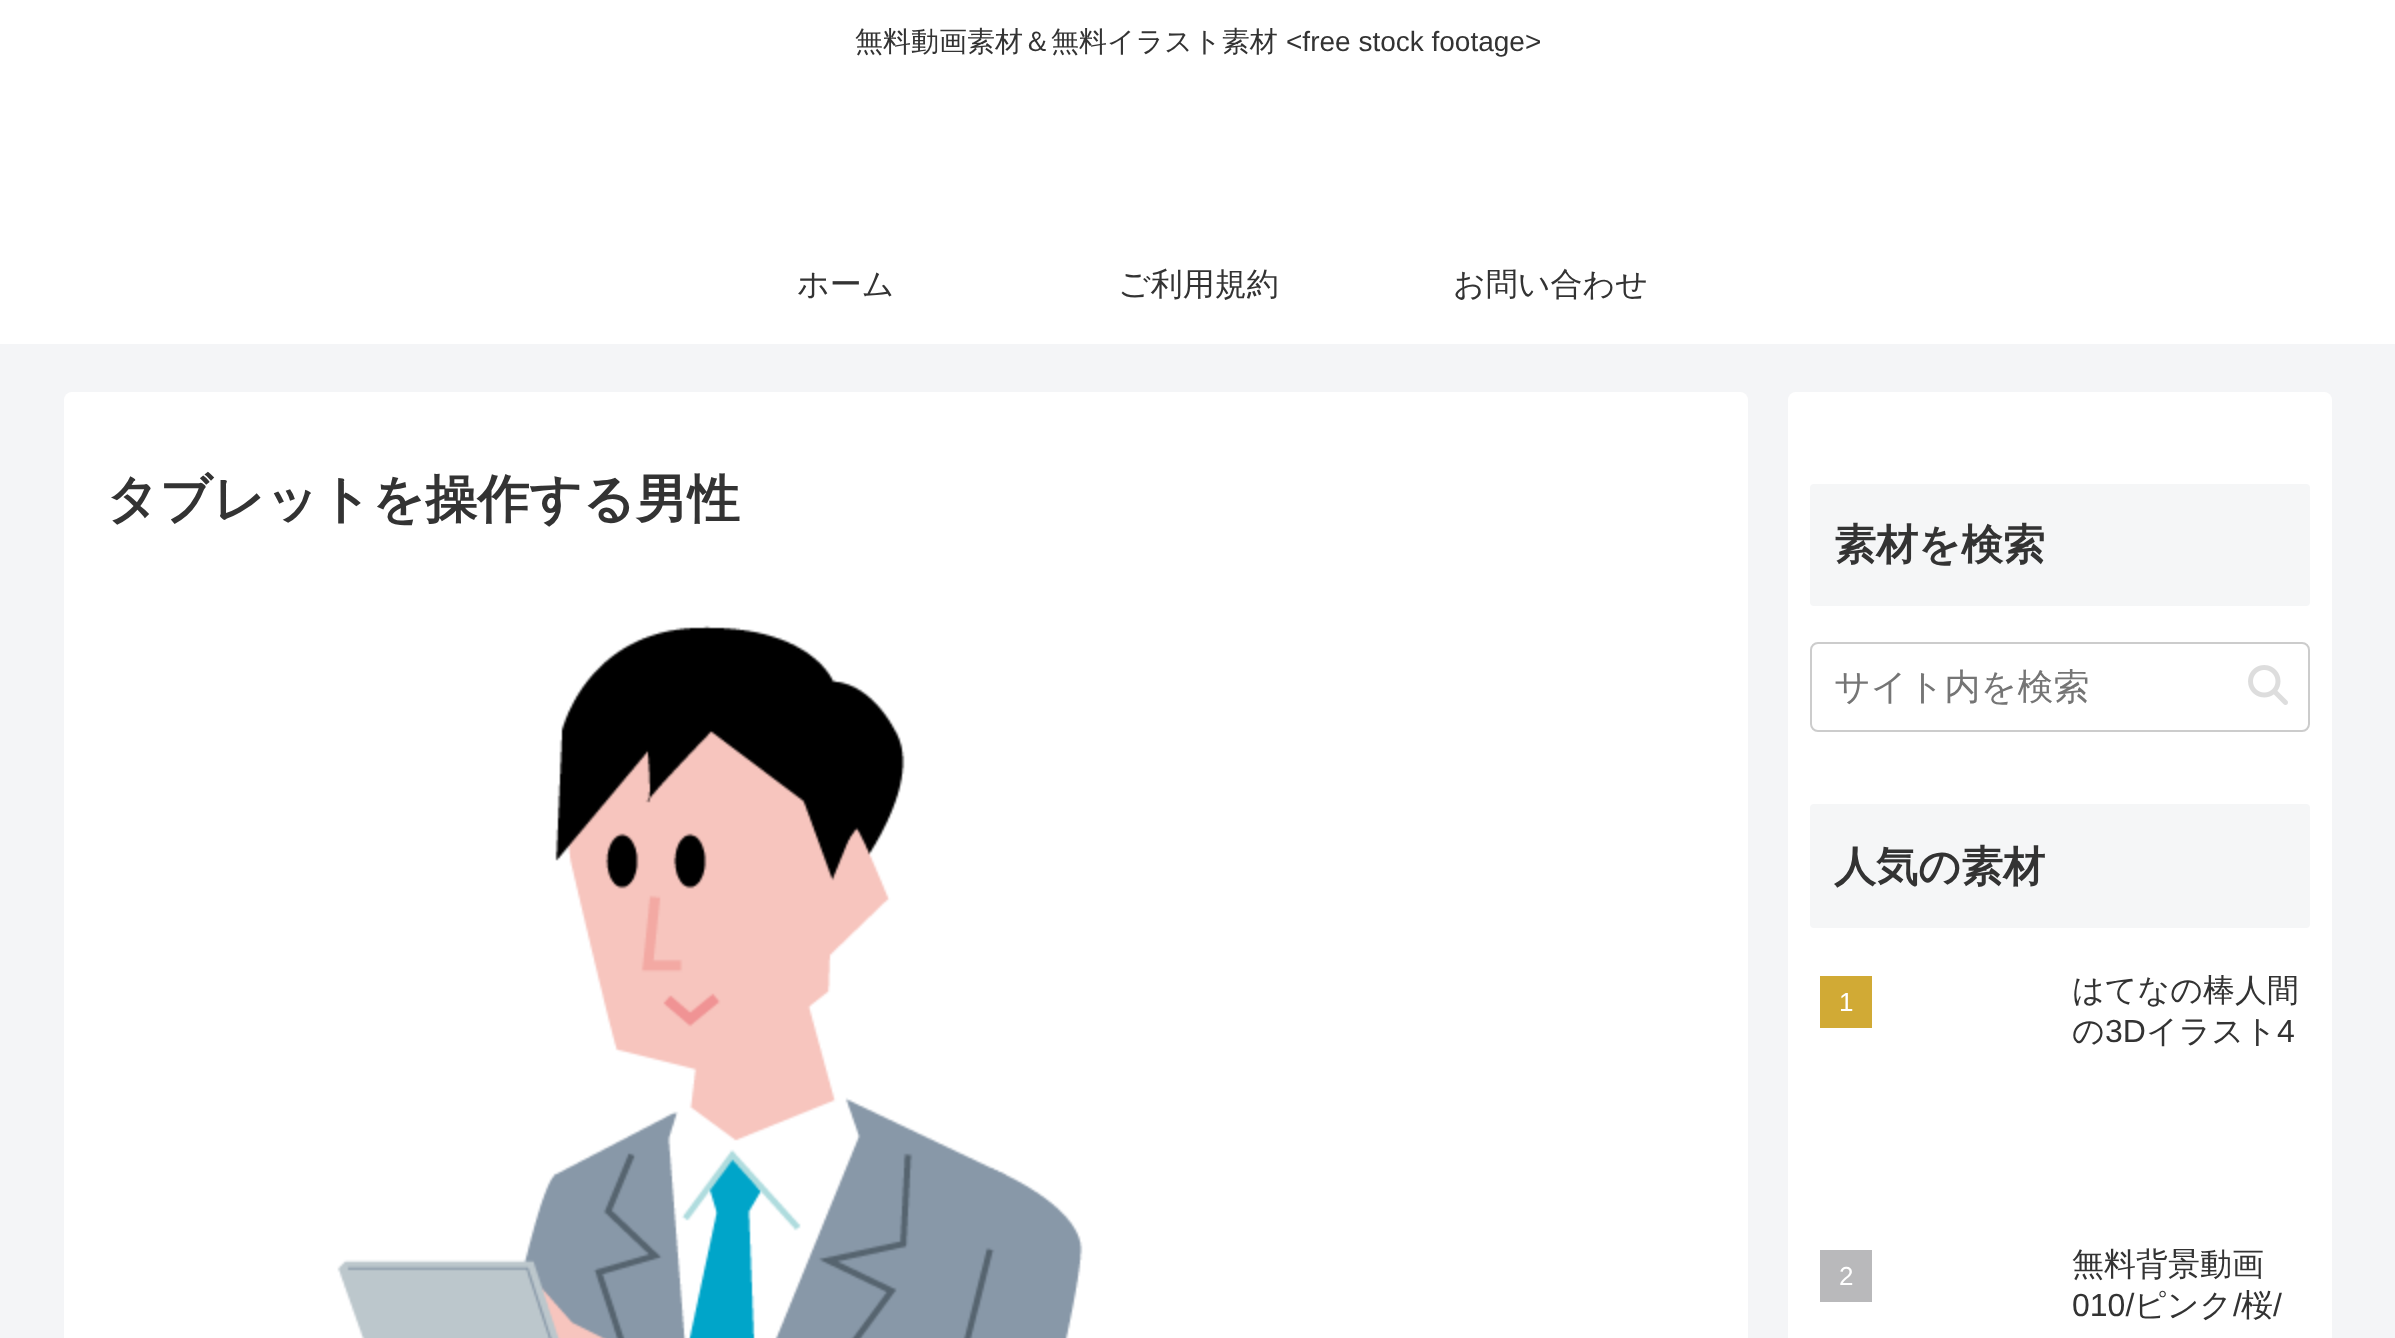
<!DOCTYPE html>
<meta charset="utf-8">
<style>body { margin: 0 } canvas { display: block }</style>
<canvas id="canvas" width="2395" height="1338"></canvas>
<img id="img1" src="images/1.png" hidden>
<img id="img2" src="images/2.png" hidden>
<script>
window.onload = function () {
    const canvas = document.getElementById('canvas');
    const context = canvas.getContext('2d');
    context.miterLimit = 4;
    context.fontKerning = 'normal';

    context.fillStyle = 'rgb(244, 245, 247)';
    context.fillRect(0, 0, 2395, 1338);
    context.fillStyle = 'rgb(255, 255, 255)';
    context.fillRect(0, 0, 2395, 344);
    context.beginPath();
    context.roundRect(64, 392, 1684, 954, 8);
    context.fill();
    context.drawImage(document.getElementById('img1'), 337, 625, 746, 713);
    context.beginPath();
    context.roundRect(1788, 392, 544, 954, 8);
    context.fill();
    context.fillStyle = 'rgb(245, 246, 247)';
    context.beginPath();
    context.roundRect(1810, 484, 500, 122, 4);
    context.fill();
    context.beginPath();
    context.roundRect(1811, 643, 498, 88, 7);
    context.strokeStyle = 'rgb(204, 204, 204)';
    context.lineWidth = 2;
    context.stroke();
    context.drawImage(document.getElementById('img2'), 2248, 665, 40, 40);
    context.beginPath();
    context.roundRect(1810, 804, 500, 124, 4);
    context.fill();
    context.fillStyle = 'rgb(209, 170, 53)';
    context.fillRect(1820, 976, 52, 52);
    context.fillStyle = 'rgb(185, 185, 187)';
    context.fillRect(1820, 1250, 52, 52);
    context.font = '500 28px WenQuanYi Zen Hei';
    context.fillStyle = 'rgb(51, 51, 51)';
    context.fillText('無料動画素材＆無料イラスト素材', 855, 51);
    context.font = '28px Liberation Sans';
    context.fillText('<free stock footage>', 1286, 51);
    context.font = '500 32px WenQuanYi Zen Hei';
    context.fillText('ホーム', 797, 295);
    context.fillText('ご利用規約', 1118, 295);
    context.fillText('お問い合わせ', 1453, 295);
    context.font = 'bold 52px WenQuanYi Zen Hei';
    context.fillText('タブレットを操作する男性', 106, 517);
    context.font = 'bold 42px WenQuanYi Zen Hei';
    context.fillText('素材を検索', 1834, 559);
    context.font = '500 36px WenQuanYi Zen Hei';
    context.fillStyle = 'rgb(117, 117, 117)';
    context.fillText('サイト内を検索', 1834, 699);
    context.font = 'bold 42px WenQuanYi Zen Hei';
    context.fillStyle = 'rgb(51, 51, 51)';
    context.fillText('人気の素材', 1834, 881);
    context.font = '26px Liberation Sans';
    context.fillStyle = 'rgb(255, 255, 255)';
    context.fillText('1', 1839, 1011);
    context.font = '500 32px WenQuanYi Zen Hei';
    context.fillStyle = 'rgb(51, 51, 51)';
    context.fillText('はてなの棒人間', 2072, 1001);
    context.fillText('の', 2072, 1042);
    context.font = '32px Liberation Sans';
    context.fillText('3D', 2105, 1042);
    context.font = '500 32px WenQuanYi Zen Hei';
    context.fillText('イラスト', 2146, 1042);
    context.font = '32px Liberation Sans';
    context.fillText('4', 2277, 1042);
    context.font = '26px Liberation Sans';
    context.fillStyle = 'rgb(255, 255, 255)';
    context.fillText('2', 1839, 1285);
    context.font = '500 32px WenQuanYi Zen Hei';
    context.fillStyle = 'rgb(51, 51, 51)';
    context.fillText('無料背景動画', 2072, 1275);
    context.font = '32px Liberation Sans';
    context.fillText('010/', 2072, 1316);
    context.font = '500 32px WenQuanYi Zen Hei';
    context.fillText('ピンク', 2134, 1316);
    context.font = '32px Liberation Sans';
    context.fillText('/', 2233, 1316);
    context.font = '500 32px WenQuanYi Zen Hei';
    context.fillText('桜', 2241, 1316);
    context.font = '32px Liberation Sans';
    context.fillText('/', 2273, 1316);
};
</script>
